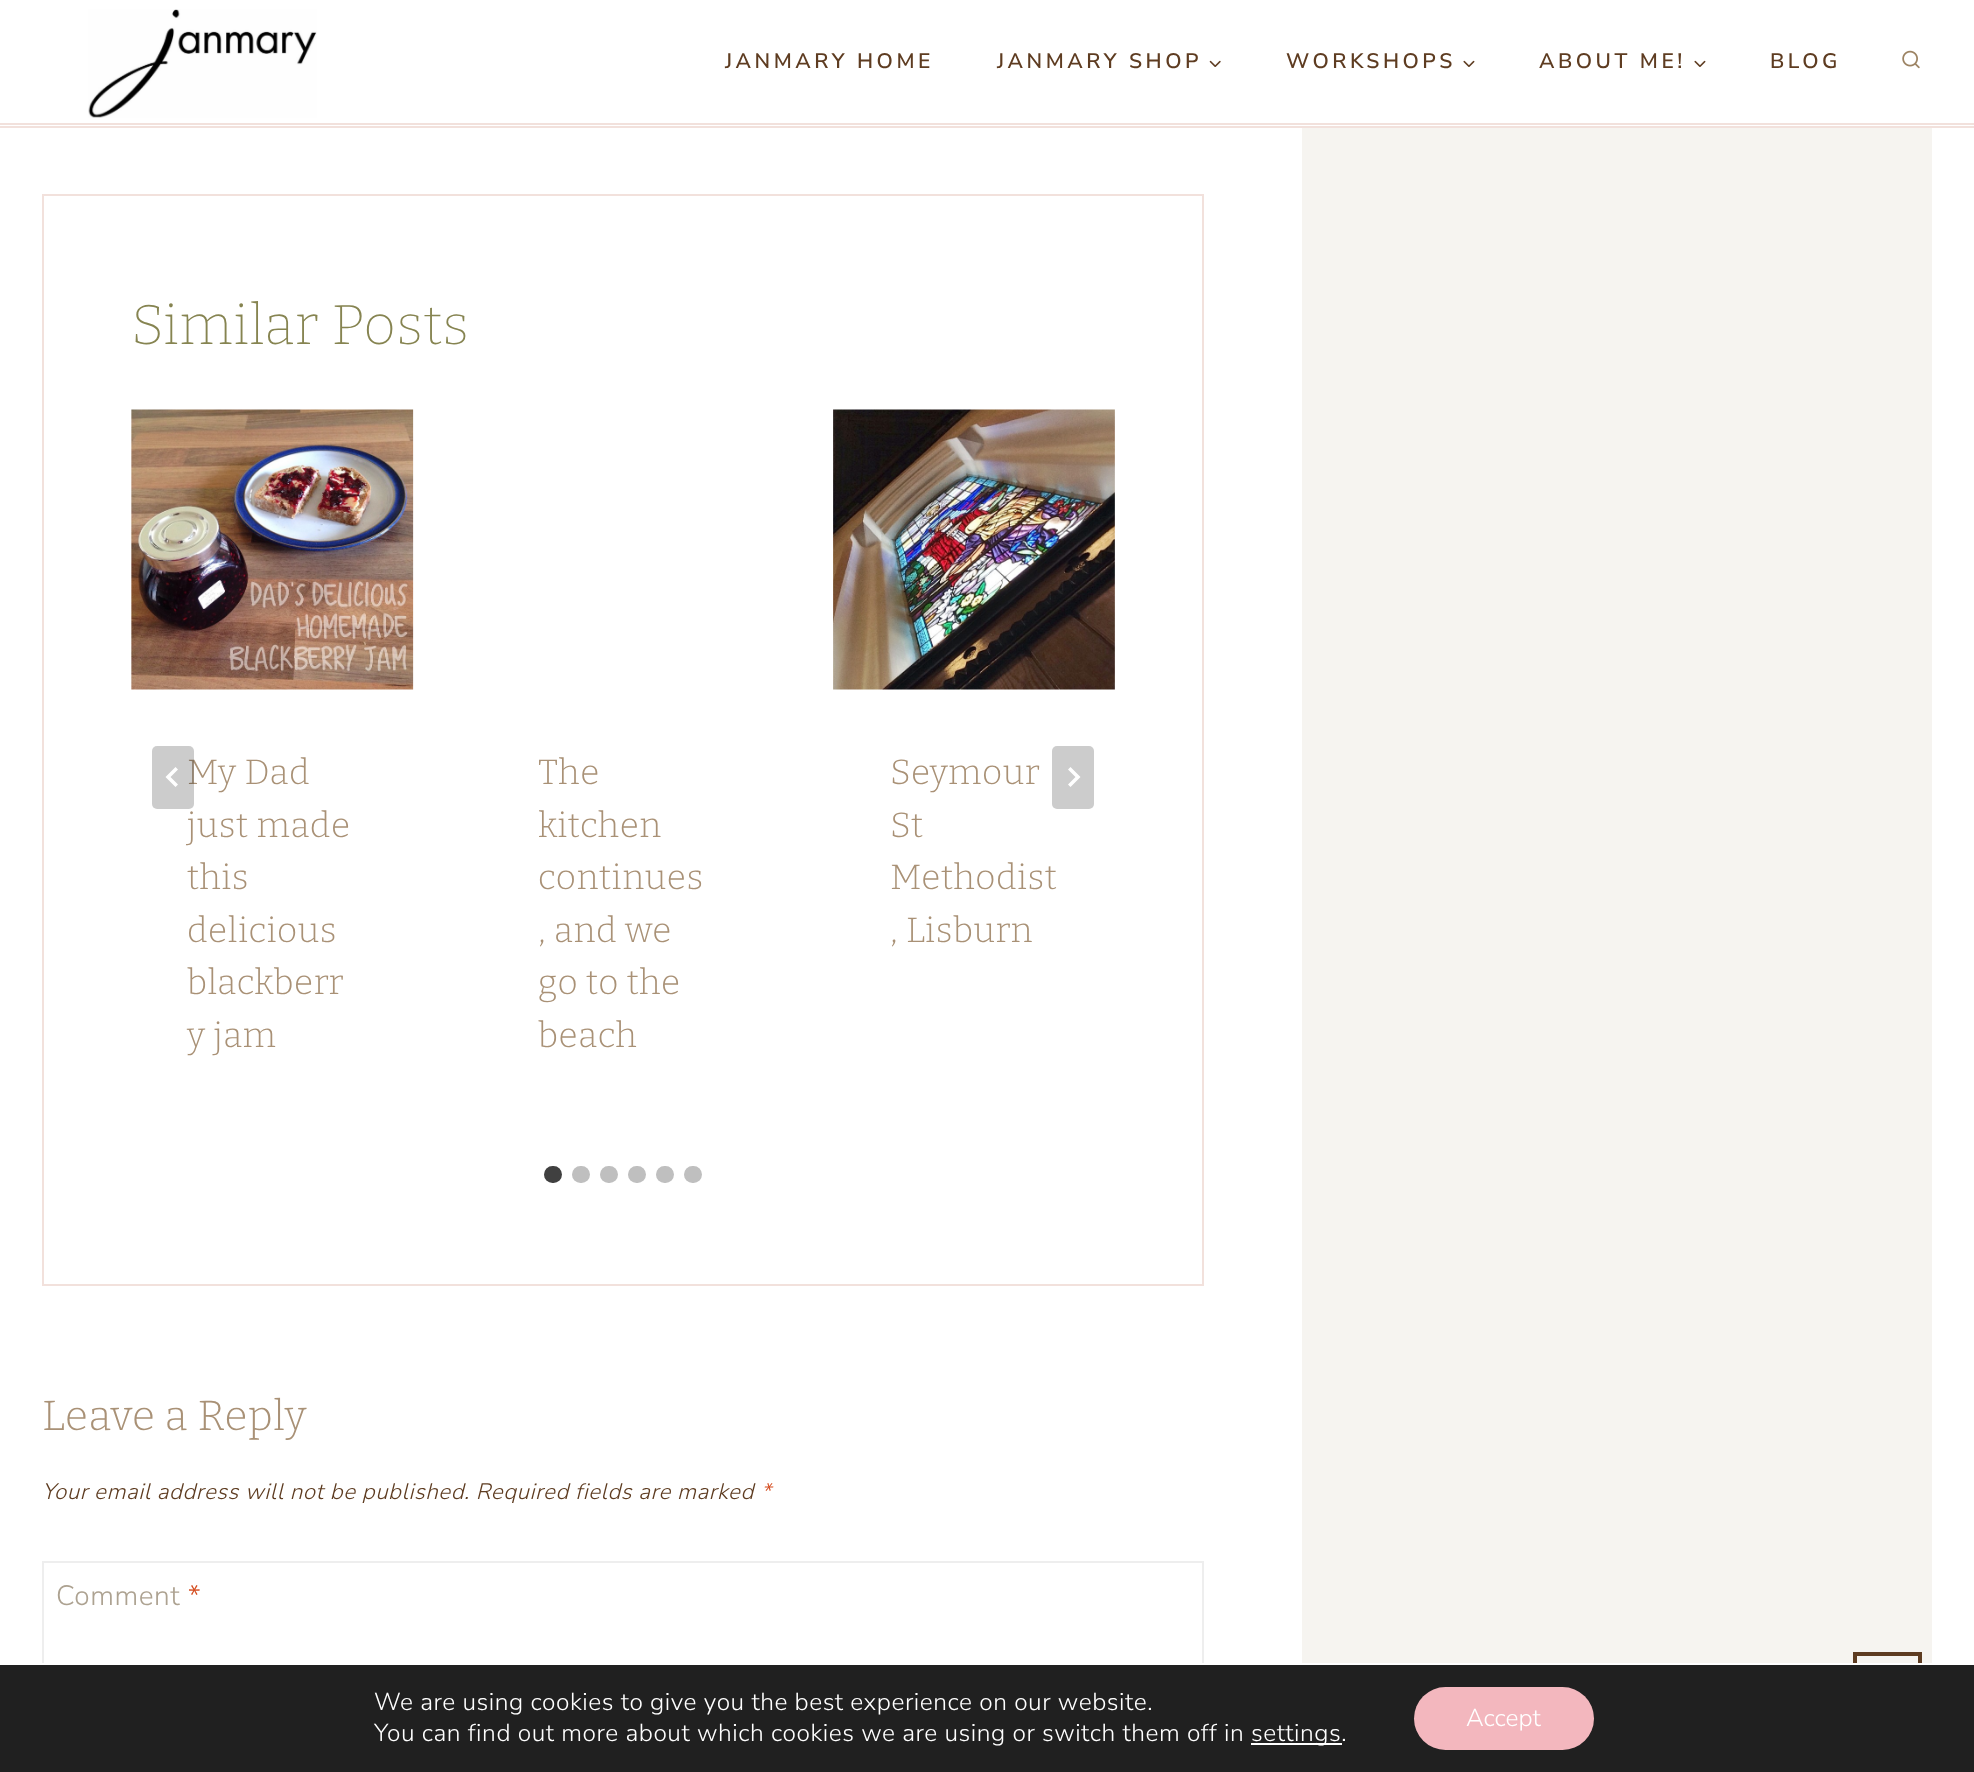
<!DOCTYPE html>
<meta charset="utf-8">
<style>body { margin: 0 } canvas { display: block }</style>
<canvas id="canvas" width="1974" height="1772"></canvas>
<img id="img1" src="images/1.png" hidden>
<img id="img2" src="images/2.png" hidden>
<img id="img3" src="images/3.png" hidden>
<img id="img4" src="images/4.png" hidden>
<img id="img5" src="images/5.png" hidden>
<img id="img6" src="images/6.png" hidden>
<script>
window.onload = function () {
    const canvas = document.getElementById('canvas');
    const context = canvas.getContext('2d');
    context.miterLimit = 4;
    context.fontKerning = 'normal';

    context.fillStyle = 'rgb(255, 255, 255)';
    context.fillRect(0, 0, 1974, 1772);
    context.fillStyle = 'rgb(242, 225, 220)';
    context.fillRect(0, 123, 1974, 2);
    context.fillRect(0, 126, 1974, 2);
    context.drawImage(document.getElementById('img1'), 88, 9, 229, 109);
    context.drawImage(document.getElementById('img2'), 1209, 60, 12, 7);
    context.drawImage(document.getElementById('img3'), 1463, 60, 12, 7);
    context.drawImage(document.getElementById('img3'), 1694, 60, 12, 7);
    context.drawImage(document.getElementById('img4'), 1902, 50, 18, 19);
    context.strokeStyle = 'rgb(242, 225, 220)';
    context.lineWidth = 2;
    context.strokeRect(43, 195, 1160, 1090);
    context.fillStyle = 'rgb(204, 204, 204)';
    context.beginPath();
    context.roundRect(1052, 746, 42, 63, 5);
    context.fill();
    context.fillStyle = 'rgb(255, 255, 255)';
    context.beginPath();
    context.moveTo(1070.5, 767);
    context.lineTo(1068, 769.5);
    context.lineTo(1075.5, 777);
    context.lineTo(1068, 784.5);
    context.lineTo(1070.5, 787);
    context.lineTo(1080.5, 777);
    context.closePath();
    context.fill();
    context.drawImage(document.getElementById('img5'), 131, 409, 283, 281);
    context.drawImage(document.getElementById('img6'), 833, 409, 282, 281);
    context.fillStyle = 'rgb(64, 64, 64)';
    context.beginPath();
    context.roundRect(544, 1166, 18, 17, 8.5);
    context.fill();
    context.fillStyle = 'rgb(191, 191, 191)';
    context.beginPath();
    context.roundRect(572, 1166, 18, 17, 8.5);
    context.fill();
    context.beginPath();
    context.roundRect(600, 1166, 18, 17, 8.5);
    context.fill();
    context.beginPath();
    context.roundRect(628, 1166, 18, 17, 8.5);
    context.fill();
    context.beginPath();
    context.roundRect(656, 1166, 18, 17, 8.5);
    context.fill();
    context.beginPath();
    context.roundRect(684, 1166, 18, 17, 8.5);
    context.fill();
    context.strokeStyle = 'rgb(238, 238, 238)';
    context.strokeRect(43, 1562, 1160, 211);
    context.fillStyle = 'rgb(246, 244, 240)';
    context.fillRect(1302, 128, 630, 1535);
    context.strokeStyle = 'rgb(94, 60, 33)';
    context.lineWidth = 4;
    context.strokeRect(1855, 1654, 65, 64);
    context.fillStyle = 'rgb(32, 32, 32)';
    context.fillRect(0, 1665, 1974, 107);
    context.fillStyle = 'rgb(255, 255, 255)';
    context.fillRect(42, 1663, 1880, 2);
    context.fillRect(1251, 1743, 91, 2);
    context.fillStyle = 'rgb(243, 183, 190)';
    context.beginPath();
    context.roundRect(1414, 1687, 180, 63, 31.5);
    context.fill();
    context.letterSpacing = '3.5px';
    context.font = '600 21px Nunito Sans';
    context.fillStyle = 'rgb(94, 60, 33)';
    context.fillText('JANMARY HOME', 725, 68);
    context.fillText('JANMARY SHOP', 997, 68);
    context.fillText('WORKSHOPS', 1286, 68);
    context.fillText('ABOUT ME!', 1539, 68);
    context.fillText('BLOG', 1770, 68);
    context.letterSpacing = '0.55px';
    context.font = '200 56px Bitter';
    context.fillStyle = 'rgb(134, 132, 81)';
    context.fillText('Similar Posts', 131, 344);
    context.font = '300 35px Bitter';
    context.fillStyle = 'rgb(169, 145, 118)';
    context.fillText('My Dad', 187, 784);
    context.fillStyle = 'rgba(0, 0, 0, 0.2)';
    context.beginPath();
    context.roundRect(152, 746, 42, 63, 5);
    context.fill();
    context.fillStyle = 'rgb(255, 255, 255)';
    context.beginPath();
    context.moveTo(175.5, 767);
    context.lineTo(178, 769.5);
    context.lineTo(170.5, 777);
    context.lineTo(178, 784.5);
    context.lineTo(175.5, 787);
    context.lineTo(165.5, 777);
    context.closePath();
    context.fill();
    context.fillStyle = 'rgb(169, 145, 118)';
    context.fillText('just made', 187, 837);
    context.fillText('this', 187, 889);
    context.fillText('delicious', 187, 942);
    context.fillText('blackberr', 187, 994);
    context.fillText('y jam', 187, 1047);
    context.fillText('The', 538, 784);
    context.fillText('kitchen', 538, 837);
    context.fillText('continues', 538, 889);
    context.fillText(', and we', 538, 942);
    context.fillText('go to the', 538, 994);
    context.fillText('beach', 538, 1047);
    context.fillText('Seymour', 890, 784);
    context.fillText('St', 890, 837);
    context.fillText('Methodist', 890, 889);
    context.fillText(', Lisburn', 890, 942);
    context.font = '300 42px Bitter';
    context.fillText('Leave a Reply', 42, 1430);
    context.font = 'italic 300 22.4px Nunito Sans';
    context.fillStyle = 'rgb(94, 60, 33)';
    context.fillText('Your email address will not be published. Required fields are marked', 42, 1499);
    context.fillStyle = 'rgb(213, 78, 33)';
    context.fillText('*', 761, 1499);
    context.font = '300 28px Nunito Sans';
    context.fillStyle = 'rgb(173, 162, 145)';
    context.fillText('Comment', 56, 1605);
    context.fillStyle = 'rgb(213, 78, 33)';
    context.fillText('*', 188, 1605);
    context.font = '300 24.5px Nunito Sans';
    context.fillStyle = 'rgb(255, 255, 255)';
    context.fillText('We are using cookies to give you the best experience on our website.', 374, 1710);
    context.fillText('You can find out more about which cookies we are using or switch them off in', 374, 1741);
    context.fillText('settings.', 1251, 1741);
    context.letterSpacing = '0px';
    context.fillText('Accept', 1466, 1726);
};
</script>
